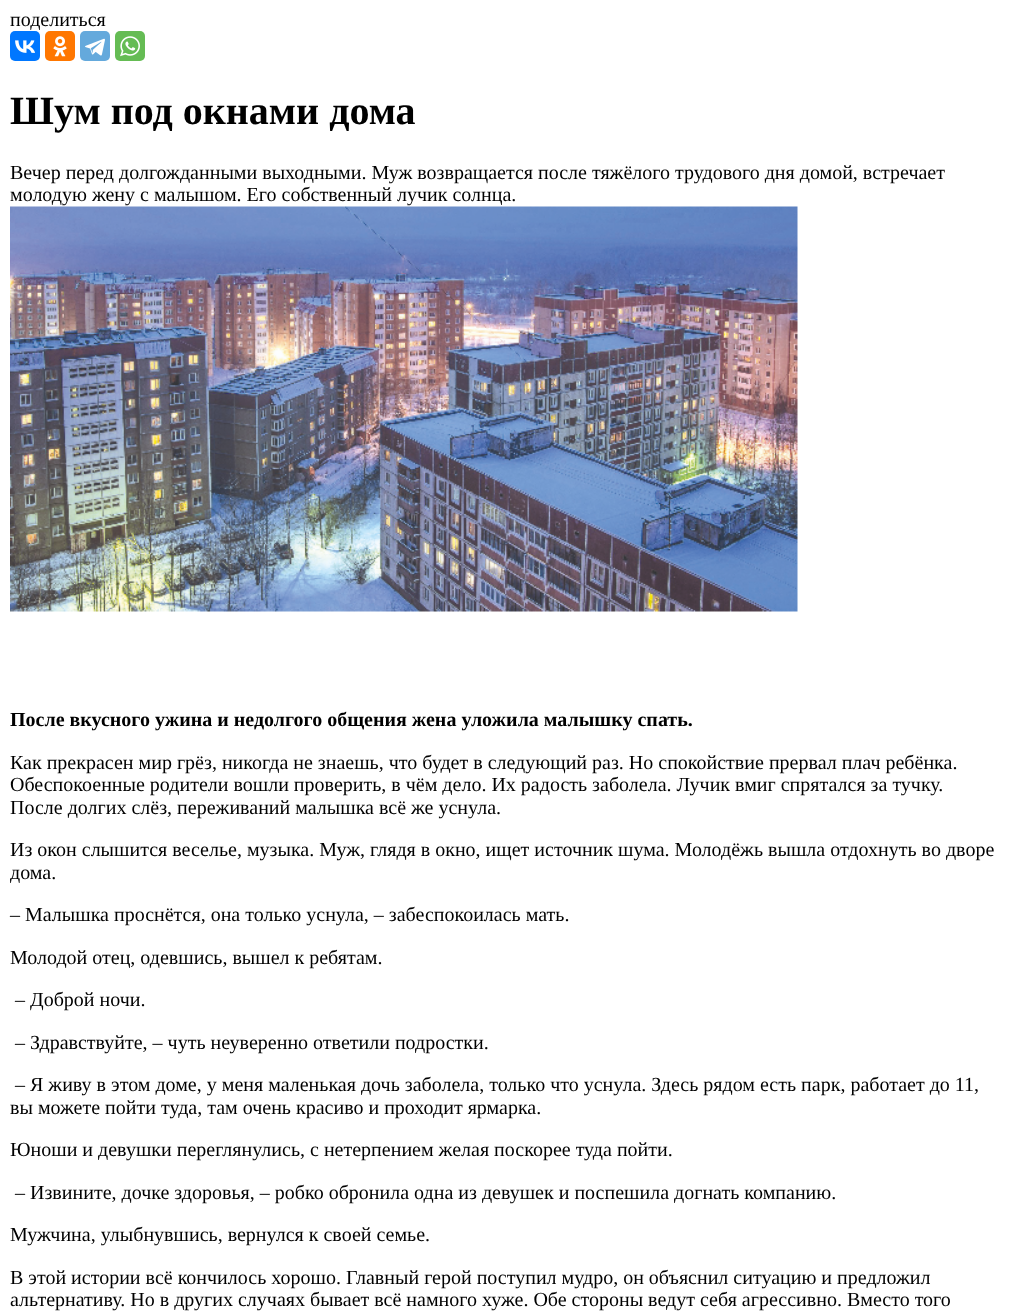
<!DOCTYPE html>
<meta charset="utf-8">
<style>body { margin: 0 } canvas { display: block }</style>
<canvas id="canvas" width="1010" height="1311"></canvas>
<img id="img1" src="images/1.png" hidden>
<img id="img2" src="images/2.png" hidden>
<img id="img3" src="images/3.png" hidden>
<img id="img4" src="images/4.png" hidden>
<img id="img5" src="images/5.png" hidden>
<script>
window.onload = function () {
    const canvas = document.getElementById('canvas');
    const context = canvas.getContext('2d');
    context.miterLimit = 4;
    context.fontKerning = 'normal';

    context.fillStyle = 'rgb(255, 255, 255)';
    context.fillRect(0, 0, 1010, 1311);
    context.fillStyle = 'rgb(0, 119, 255)';
    context.beginPath();
    context.roundRect(10, 31, 30, 30, 5);
    context.fill();
    context.drawImage(document.getElementById('img1'), 15, 40, 20, 13);
    context.fillStyle = 'rgb(255, 119, 0)';
    context.beginPath();
    context.roundRect(45, 31, 30, 30, 5);
    context.fill();
    context.drawImage(document.getElementById('img2'), 53, 36, 14, 21);
    context.fillStyle = 'rgb(100, 169, 220)';
    context.beginPath();
    context.roundRect(80, 31, 30, 30, 5);
    context.fill();
    context.drawImage(document.getElementById('img3'), 85, 38, 20, 18);
    context.fillStyle = 'rgb(101, 188, 84)';
    context.beginPath();
    context.roundRect(115, 31, 30, 30, 5);
    context.fill();
    context.drawImage(document.getElementById('img4'), 120, 36, 20, 21);
    context.drawImage(document.getElementById('img5'), 10, 206, 788, 406);
    context.font = '20px Liberation Serif';
    context.fillStyle = 'rgb(0, 0, 0)';
    context.fillText('поделиться', 10, 26);
    context.font = 'bold 40px Liberation Serif';
    context.fillText('Шум под окнами дома', 10, 124);
    context.font = '20px Liberation Serif';
    context.fillText('Вечер перед долгожданными выходными. Муж возвращается после тяжёлого трудового дня домой, встречает', 10, 179);
    context.fillText('молодую жену с малышом. Его собственный лучик солнца.', 10, 201);
    context.font = 'bold 20px Liberation Serif';
    context.fillText('После вкусного ужина и недолгого общения жена уложила малышку спать.', 10, 726);
    context.font = '20px Liberation Serif';
    context.fillText('Как прекрасен мир грёз, никогда не знаешь, что будет в следующий раз. Но спокойствие прервал плач ребёнка.', 10, 769);
    context.fillText('Обеспокоенные родители вошли проверить, в чём дело. Их радость заболела. Лучик вмиг спрятался за тучку.', 10, 791);
    context.fillText('После долгих слёз, переживаний малышка всё же уснула.', 10, 814);
    context.fillText('Из окон слышится веселье, музыка. Муж, глядя в окно, ищет источник шума. Молодёжь вышла отдохнуть во дворе', 10, 856);
    context.fillText('дома.', 10, 879);
    context.fillText('– Малышка проснётся, она только уснула, – забеспокоилась мать.', 10, 921);
    context.fillText('Молодой отец, одевшись, вышел к ребятам.', 10, 964);
    context.fillText('– Доброй ночи.', 15, 1006);
    context.fillText('– Здравствуйте, – чуть неуверенно ответили подростки.', 15, 1049);
    context.fillText('– Я живу в этом доме, у меня маленькая дочь заболела, только что уснула. Здесь рядом есть парк, работает до 11,', 15, 1091);
    context.fillText('вы можете пойти туда, там очень красиво и проходит ярмарка.', 10, 1114);
    context.fillText('Юноши и девушки переглянулись, с нетерпением желая поскорее туда пойти.', 10, 1156);
    context.fillText('– Извините, дочке здоровья, – робко обронила одна из девушек и поспешила догнать компанию.', 15, 1199);
    context.fillText('Мужчина, улыбнувшись, вернулся к своей семье.', 10, 1241);
    context.fillText('В этой истории всё кончилось хорошо. Главный герой поступил мудро, он объяснил ситуацию и предложил', 10, 1284);
    context.fillText('альтернативу. Но в других случаях бывает всё намного хуже. Обе стороны ведут себя агрессивно. Вместо того', 10, 1306);
};
</script>
